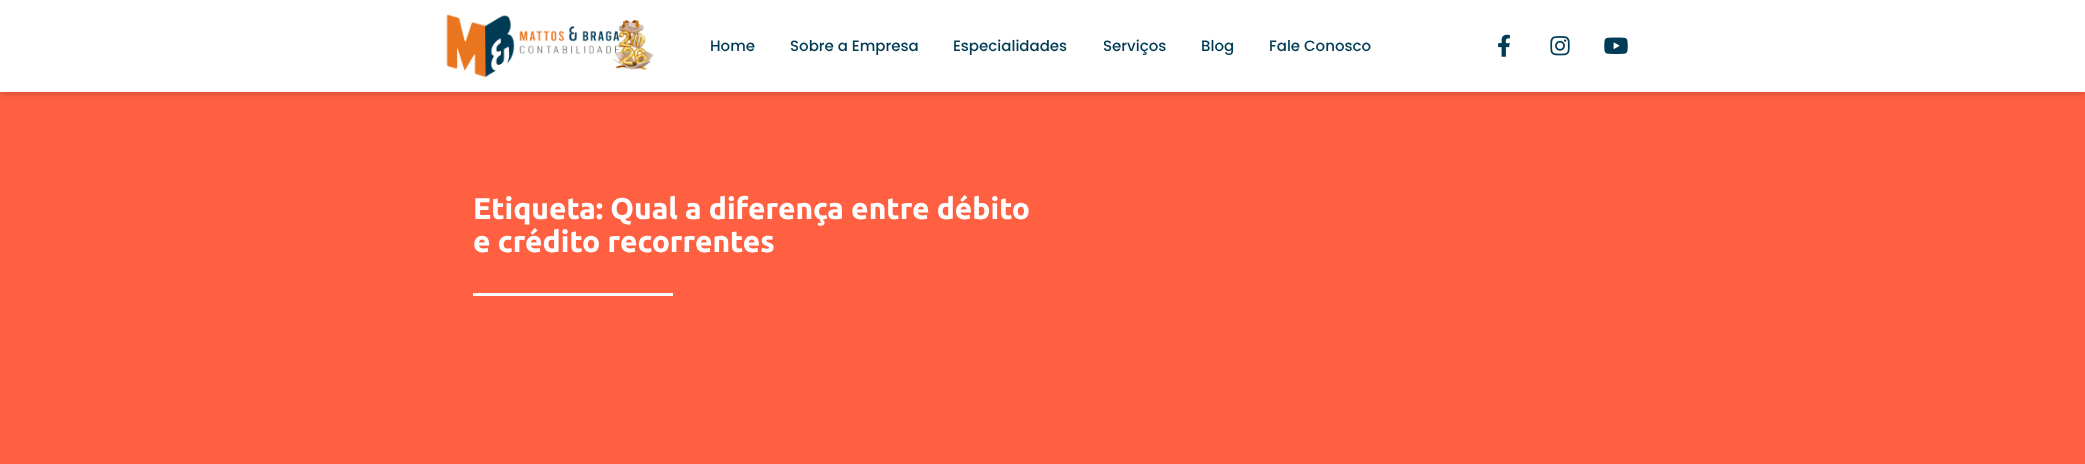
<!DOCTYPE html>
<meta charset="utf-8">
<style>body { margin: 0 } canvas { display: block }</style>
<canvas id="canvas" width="2085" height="464"></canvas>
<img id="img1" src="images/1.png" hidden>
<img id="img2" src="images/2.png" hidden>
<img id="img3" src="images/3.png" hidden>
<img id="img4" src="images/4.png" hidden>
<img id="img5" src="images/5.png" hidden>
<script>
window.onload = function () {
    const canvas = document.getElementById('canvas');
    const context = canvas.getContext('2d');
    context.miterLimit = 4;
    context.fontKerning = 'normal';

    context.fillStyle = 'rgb(255, 96, 65)';
    context.fillRect(0, 0, 2085, 464);
    context.fillStyle = 'rgba(0, 0, 0, 0.27)';
    context.filter = 'blur(5px)';
    context.beginPath();
    context.rect(0, 0, 2085, 92);
    context.fill();
    context.filter = 'none';
    context.fillStyle = 'rgb(255, 255, 255)';
    context.fillRect(0, 0, 2085, 92);
    context.drawImage(document.getElementById('img1'), 446, 14, 174, 64);
    context.drawImage(document.getElementById('img2'), 612, 20, 42, 50);
    context.drawImage(document.getElementById('img3'), 1498, 34, 12, 23);
    context.drawImage(document.getElementById('img4'), 1550, 36, 20, 20);
    context.drawImage(document.getElementById('img5'), 1604, 37, 24, 17);
    context.fillRect(473, 293, 200, 3);
    context.font = '500 15px Poppins';
    context.fillStyle = 'rgb(0, 60, 86)';
    context.fillText('Home', 710, 51);
    context.fillText('Sobre a Empresa', 790, 51);
    context.fillText('Especialidades', 953, 51);
    context.fillText('Serviços', 1103, 51);
    context.fillText('Blog', 1201, 51);
    context.fillText('Fale Conosco', 1269, 51);
    context.font = 'bold 30px Ubuntu';
    context.fillStyle = 'rgb(255, 255, 255)';
    context.fillText('Etiqueta: Qual a diferença entre débito', 473, 219);
    context.fillText('e crédito recorrentes', 473, 252);
};
</script>
